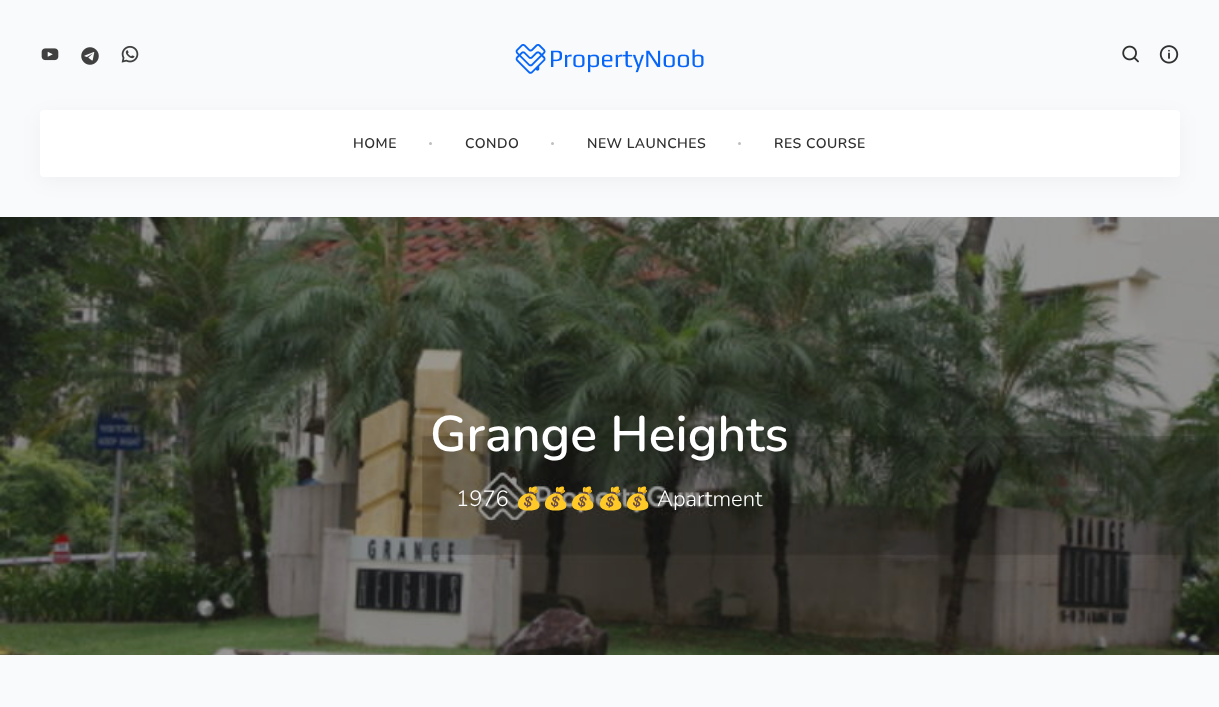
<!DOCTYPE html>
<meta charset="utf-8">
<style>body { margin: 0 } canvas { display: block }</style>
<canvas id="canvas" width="1219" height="707"></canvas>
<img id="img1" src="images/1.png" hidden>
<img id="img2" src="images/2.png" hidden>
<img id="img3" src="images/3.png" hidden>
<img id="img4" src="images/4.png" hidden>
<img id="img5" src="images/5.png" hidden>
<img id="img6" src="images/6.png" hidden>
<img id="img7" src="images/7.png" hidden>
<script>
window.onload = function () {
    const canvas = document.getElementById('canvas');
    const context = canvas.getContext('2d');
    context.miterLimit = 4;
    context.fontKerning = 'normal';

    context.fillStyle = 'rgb(249, 250, 251)';
    context.fillRect(0, 0, 1219, 707);
    context.drawImage(document.getElementById('img1'), 41, 48, 18, 13);
    context.drawImage(document.getElementById('img2'), 81, 47, 18, 18);
    context.drawImage(document.getElementById('img3'), 121, 45, 18, 18);
    context.drawImage(document.getElementById('img4'), 515, 44, 189, 30);
    context.drawImage(document.getElementById('img5'), 1122, 45, 17, 18);
    context.drawImage(document.getElementById('img6'), 1159, 45, 20, 19);
    context.fillStyle = 'rgba(0, 0, 0, 0.04)';
    context.filter = 'blur(10px)';
    context.beginPath();
    context.roundRect(40, 115, 1140, 67, 4);
    context.fill();
    context.filter = 'none';
    context.fillStyle = 'rgb(255, 255, 255)';
    context.beginPath();
    context.roundRect(40, 110, 1140, 67, 4);
    context.fill();
    context.fillStyle = 'rgb(191, 191, 191)';
    context.beginPath();
    context.arc(430.5, 143.5, 1.5, 0, 2 * Math.PI);
    context.fill();
    context.beginPath();
    context.arc(552.5, 143.5, 1.5, 0, 2 * Math.PI);
    context.fill();
    context.beginPath();
    context.arc(739.5, 143.5, 1.5, 0, 2 * Math.PI);
    context.fill();
    context.drawImage(document.getElementById('img7'), 0, 217, 1219, 438);
    context.letterSpacing = '0.5px';
    context.font = '600 14px Nunito';
    context.fillStyle = 'rgb(48, 48, 48)';
    context.fillText('HOME', 353, 148);
    context.fillText('CONDO', 465, 148);
    context.fillText('NEW LAUNCHES', 587, 148);
    context.fillText('RES COURSE', 774, 148);
    context.letterSpacing = '0px';
    context.font = '600 50px Nunito';
    context.fillStyle = 'rgb(255, 255, 255)';
    context.fillText('Grange Heights', 430, 451);
    context.font = '300 22px Nunito';
    context.fillText('1976', 456, 506);
    context.font = '22px Noto Color Emoji';
    context.fillText('💰💰💰💰💰', 515, 506);
    context.font = '300 22px Nunito';
    context.fillText('Apartment', 657, 506);
};
</script>
